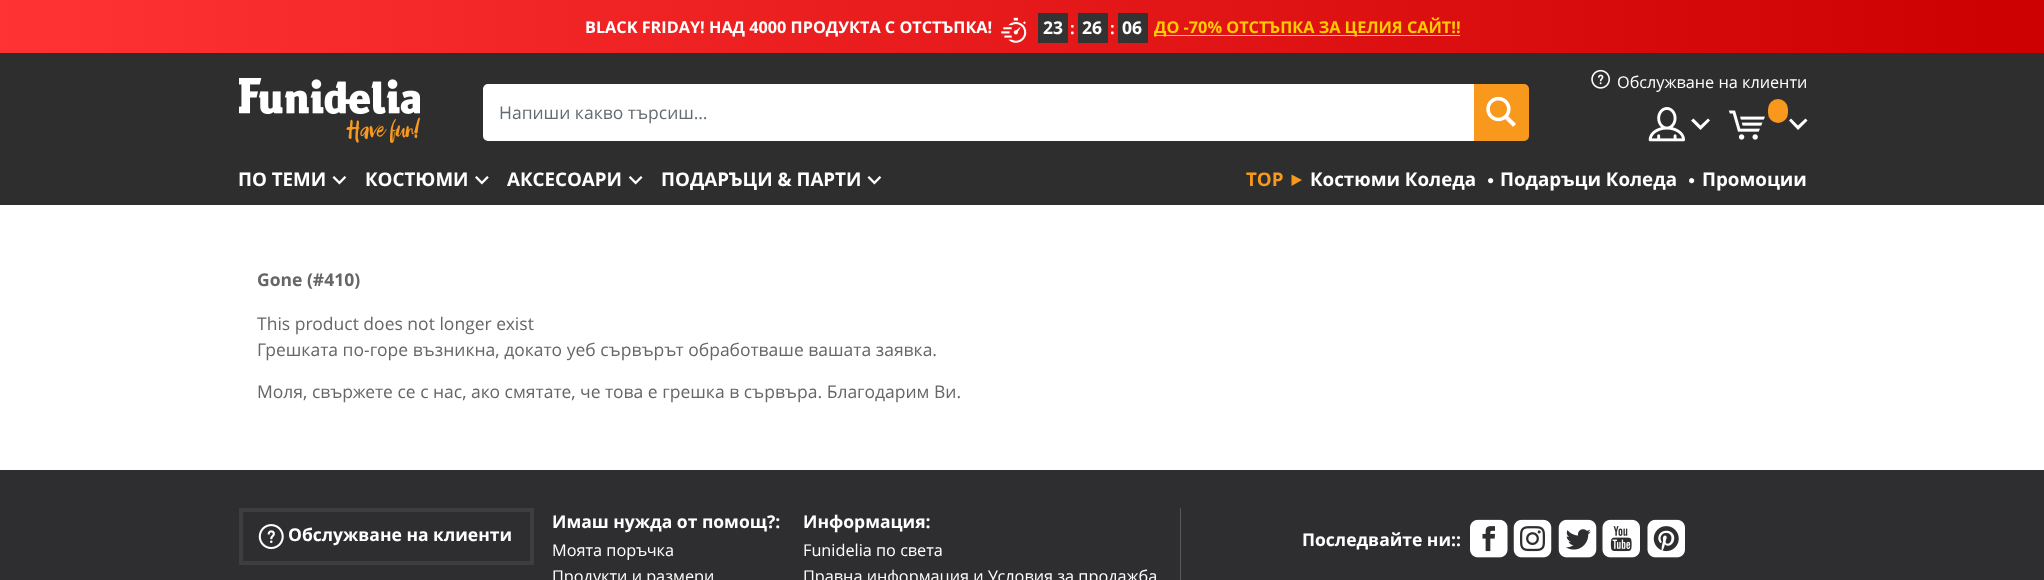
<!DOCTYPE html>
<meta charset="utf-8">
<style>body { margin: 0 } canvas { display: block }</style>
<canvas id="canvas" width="2044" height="580"></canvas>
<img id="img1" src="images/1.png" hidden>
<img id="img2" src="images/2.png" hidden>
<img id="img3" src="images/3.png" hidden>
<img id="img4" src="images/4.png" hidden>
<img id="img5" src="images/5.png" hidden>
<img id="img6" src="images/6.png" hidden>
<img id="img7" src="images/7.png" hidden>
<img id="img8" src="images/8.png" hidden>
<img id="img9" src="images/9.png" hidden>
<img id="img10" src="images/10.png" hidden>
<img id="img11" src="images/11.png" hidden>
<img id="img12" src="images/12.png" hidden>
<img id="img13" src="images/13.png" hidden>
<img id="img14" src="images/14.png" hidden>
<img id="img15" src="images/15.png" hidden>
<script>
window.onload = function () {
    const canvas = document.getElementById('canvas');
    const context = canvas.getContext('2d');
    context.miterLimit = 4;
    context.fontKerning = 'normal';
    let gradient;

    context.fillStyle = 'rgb(255, 255, 255)';
    context.fillRect(0, 0, 2044, 580);
    context.fillStyle = 'rgb(46, 46, 46)';
    context.fillRect(0, 53, 2044, 152);
    gradient = context.createLinearGradient(0, 26, 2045, 26);
    gradient.addColorStop(0, 'rgb(255, 51, 51)');
    gradient.addColorStop(1, 'rgb(204, 0, 0)');
    context.fillStyle = gradient;
    context.fillRect(0, 0, 2044, 53);
    context.drawImage(document.getElementById('img1'), 1001, 17, 26, 26);
    context.fillStyle = 'rgb(51, 51, 51)';
    context.fillRect(1038, 13, 30, 30);
    context.fillRect(1078, 13, 30, 30);
    context.fillRect(1118, 13, 30, 30);
    context.fillStyle = 'rgb(255, 204, 0)';
    context.fillRect(1154, 35, 306, 1);
    context.drawImage(document.getElementById('img2'), 239, 78, 181, 65);
    context.fillStyle = 'rgb(255, 255, 255)';
    context.beginPath();
    context.roundRect(484.5, 85.5, 988, 54, [3.5, 0, 0, 3.5]);
    context.fill();
    context.strokeStyle = 'rgb(255, 255, 255)';
    context.lineWidth = 3;
    context.stroke();
    context.fillStyle = 'rgb(248, 152, 29)';
    context.beginPath();
    context.roundRect(1474, 84, 55, 57, [0, 5, 5, 0]);
    context.fill();
    context.drawImage(document.getElementById('img3'), 1486, 96, 30, 31);
    context.drawImage(document.getElementById('img4'), 1591, 69, 19, 20);
    context.drawImage(document.getElementById('img5'), 1648, 107, 37, 35);
    context.fillStyle = 'rgb(255, 255, 255)';
    context.beginPath();
    context.moveTo(1691, 120.5);
    context.lineTo(1693.5, 118.5);
    context.lineTo(1700.5, 125.5);
    context.lineTo(1708, 118.5);
    context.lineTo(1710, 120.5);
    context.lineTo(1700.5, 130);
    context.closePath();
    context.fill();
    context.drawImage(document.getElementById('img6'), 1728, 110, 37, 30);
    context.fillStyle = 'rgb(248, 152, 29)';
    context.beginPath();
    context.roundRect(1768, 99, 20, 24, 10);
    context.fill();
    context.fillStyle = 'rgb(255, 255, 255)';
    context.beginPath();
    context.moveTo(1789, 120.5);
    context.lineTo(1791, 118.5);
    context.lineTo(1798, 125.5);
    context.lineTo(1805.5, 118.5);
    context.lineTo(1807.5, 120.5);
    context.lineTo(1798, 130);
    context.closePath();
    context.fill();
    context.drawImage(document.getElementById('img7'), 332, 176, 15, 9);
    context.drawImage(document.getElementById('img8'), 475, 176, 14, 9);
    context.drawImage(document.getElementById('img9'), 628, 176, 15, 9);
    context.drawImage(document.getElementById('img7'), 867, 176, 15, 9);
    context.fillStyle = 'rgb(248, 152, 29)';
    context.beginPath();
    context.moveTo(1291.5, 186);
    context.lineTo(1291.5, 174.5);
    context.lineTo(1302, 180);
    context.closePath();
    context.fill();
    context.fillStyle = 'rgb(46, 46, 48)';
    context.fillRect(0, 470, 2044, 110);
    context.strokeStyle = 'rgb(62, 62, 64)';
    context.lineWidth = 4;
    context.strokeRect(241, 510, 291, 53);
    context.drawImage(document.getElementById('img10'), 258, 524, 26, 26);
    context.fillStyle = 'rgb(90, 90, 92)';
    context.fillRect(1180, 508, 1, 72);
    context.drawImage(document.getElementById('img11'), 1470, 519, 38, 39);
    context.drawImage(document.getElementById('img12'), 1513, 519, 39, 39);
    context.drawImage(document.getElementById('img13'), 1558, 519, 39, 39);
    context.drawImage(document.getElementById('img14'), 1602, 519, 38, 39);
    context.drawImage(document.getElementById('img15'), 1647, 519, 38, 39);
    context.font = 'bold 16.25px Open Sans';
    context.fillStyle = 'rgb(255, 255, 255)';
    context.fillText('BLACK FRIDAY! НАД 4000 ПРОДУКТА С ОТСТЪПКА!', 585, 33);
    context.font = 'bold 17.5px Open Sans';
    context.fillText('23', 1043, 34);
    context.font = 'bold 16.25px Open Sans';
    context.fillText(':', 1070, 34);
    context.font = 'bold 17.5px Open Sans';
    context.fillText('26', 1082, 34);
    context.font = 'bold 16.25px Open Sans';
    context.fillText(':', 1110, 34);
    context.font = 'bold 17.5px Open Sans';
    context.fillText('06', 1122, 34);
    context.font = 'bold 16.25px Open Sans';
    context.fillStyle = 'rgb(255, 204, 0)';
    context.fillText('ДО -70% ОТСТЪПКА ЗА ЦЕЛИЯ САЙТ!!', 1154, 33);
    context.font = '17.5px Open Sans';
    context.fillStyle = 'rgb(99, 108, 114)';
    context.fillText('Напиши какво търсиш…', 499, 119);
    context.font = '16.25px Open Sans';
    context.fillStyle = 'rgb(255, 255, 255)';
    context.fillText('Обслужване на клиенти', 1617, 88);
    context.font = 'bold 18.75px Open Sans';
    context.fillText('ПО ТЕМИ', 238, 186);
    context.fillText('КОСТЮМИ', 365, 186);
    context.fillText('АКСЕСОАРИ', 507, 186);
    context.fillText('ПОДАРЪЦИ & ПАРТИ', 661, 186);
    context.fillStyle = 'rgb(248, 152, 29)';
    context.fillText('TOP', 1246, 186);
    context.fillStyle = 'rgb(255, 255, 255)';
    context.fillText('Костюми Коледа', 1310, 186);
    context.font = '12px Liberation Sans';
    context.fillText('●', 1487, 184);
    context.font = 'bold 18.75px Open Sans';
    context.fillText('Подаръци Коледа', 1500, 186);
    context.font = '12px Liberation Sans';
    context.fillText('●', 1688, 184);
    context.font = 'bold 18.75px Open Sans';
    context.fillText('Промоции', 1702, 186);
    context.font = 'bold 17.5px Open Sans';
    context.fillStyle = 'rgb(102, 102, 102)';
    context.fillText('Gone (#410)', 257, 286);
    context.font = '17.5px Open Sans';
    context.fillText('This product does not longer exist', 257, 330);
    context.fillText('Грешката по-горе възникна, докато уеб сървърът обработваше вашата заявка.', 257, 356);
    context.fillText('Моля, свържете се с нас, ако смятате, че това е грешка в сървъра. Благодарим Ви.', 257, 398);
    context.font = 'bold 17.5px Open Sans';
    context.fillStyle = 'rgb(255, 255, 255)';
    context.fillText('Обслужване на клиенти', 288, 541);
    context.fillText('Имаш нужда от помощ?:', 552, 528);
    context.font = '16.25px Open Sans';
    context.fillText('Моята поръчка', 552, 556);
    context.fillText('Продукти и размери', 552, 582);
    context.font = 'bold 17.5px Open Sans';
    context.fillText('Информация:', 803, 528);
    context.font = '16.25px Open Sans';
    context.fillText('Funidelia по света', 803, 556);
    context.fillText('Правна информация и Условия за продажба', 803, 582);
    context.font = 'bold 17.5px Open Sans';
    context.fillText('Последвайте ни::', 1302, 546);
};
</script>
